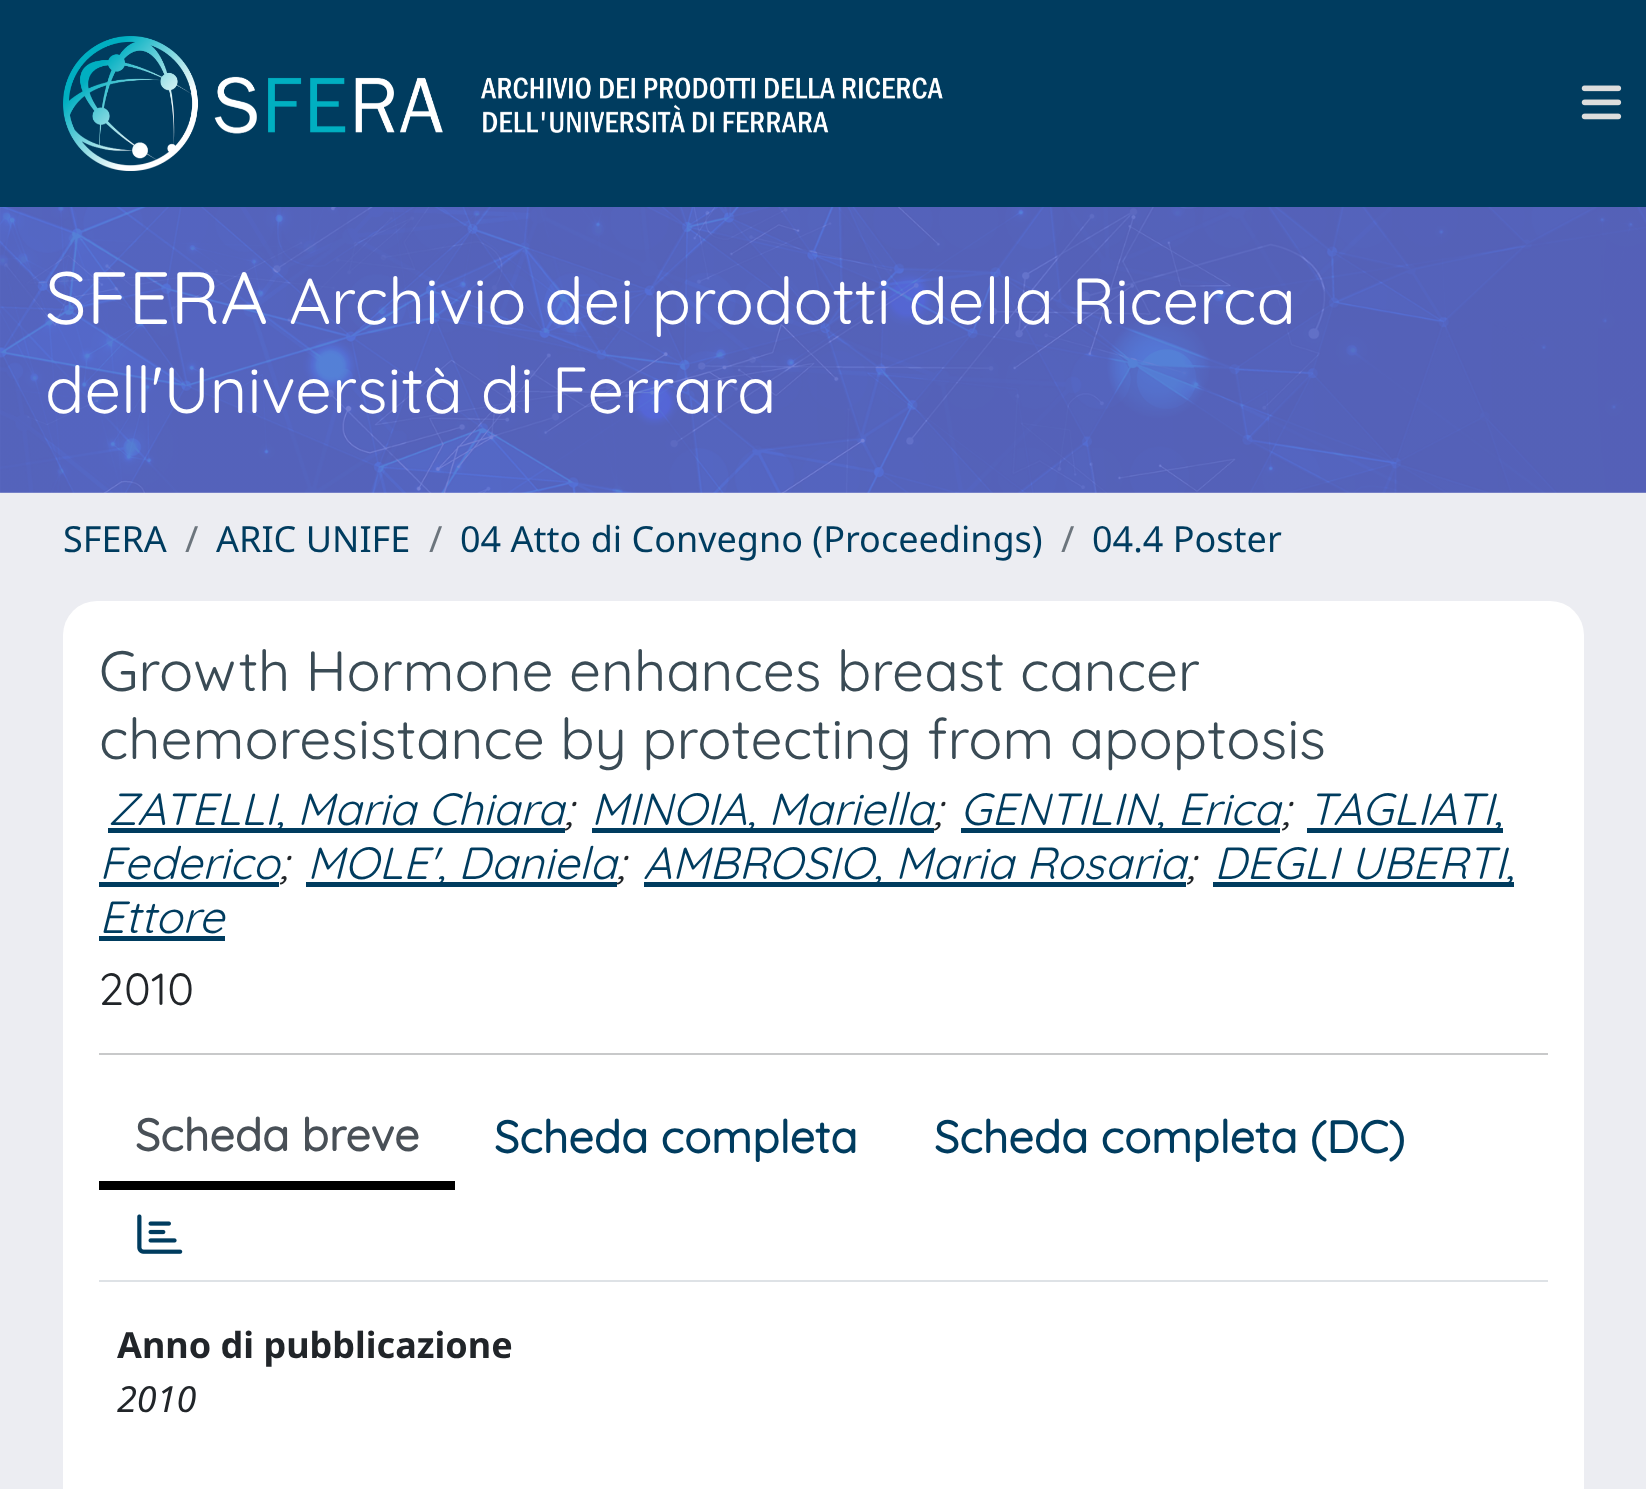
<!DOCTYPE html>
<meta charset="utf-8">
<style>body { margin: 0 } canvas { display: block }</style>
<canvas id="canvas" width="1646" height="1489"></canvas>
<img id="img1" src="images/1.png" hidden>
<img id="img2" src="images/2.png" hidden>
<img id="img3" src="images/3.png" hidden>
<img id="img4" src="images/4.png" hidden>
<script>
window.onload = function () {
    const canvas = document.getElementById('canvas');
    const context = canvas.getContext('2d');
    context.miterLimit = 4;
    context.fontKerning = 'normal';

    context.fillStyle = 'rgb(236, 237, 242)';
    context.fillRect(0, 0, 1646, 1489);
    context.fillStyle = 'rgb(0, 60, 95)';
    context.fillRect(0, 0, 1646, 207);
    context.drawImage(document.getElementById('img1'), 63, 36, 880, 135);
    context.drawImage(document.getElementById('img2'), 1581, 85, 41, 35);
    context.drawImage(document.getElementById('img3'), 0, 207, 1646, 286);
    context.fillStyle = 'rgb(255, 255, 255)';
    context.beginPath();
    context.roundRect(63, 601, 1521, 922, 34);
    context.fill();
    context.fillStyle = 'rgb(0, 60, 95)';
    context.fillRect(108, 828, 457, 5);
    context.fillRect(592, 828, 342, 5);
    context.fillRect(961, 828, 319, 5);
    context.fillRect(1307, 828, 196, 5);
    context.fillRect(99, 882, 180, 5);
    context.fillRect(306, 882, 311, 5);
    context.fillRect(644, 882, 542, 5);
    context.fillRect(1213, 882, 301, 5);
    context.fillRect(99, 936, 126, 5);
    context.fillStyle = 'rgb(200, 201, 202)';
    context.fillRect(99, 1053, 1449, 2);
    context.fillStyle = 'rgb(222, 226, 230)';
    context.fillRect(99, 1280, 1449, 2);
    context.fillStyle = 'rgb(0, 0, 0)';
    context.fillRect(99, 1181, 356, 9);
    context.drawImage(document.getElementById('img4'), 137, 1214, 46, 40);
    context.font = '74px Quicksand';
    context.fillStyle = 'rgb(255, 255, 255)';
    context.fillText('SFERA', 45, 324);
    context.font = '64.9px Quicksand';
    context.fillText('Archivio dei prodotti della Ricerca', 289, 324);
    context.fillText('dell\'Università di Ferrara', 45, 413);
    context.font = '36px Noto Sans';
    context.fillStyle = 'rgb(0, 60, 95)';
    context.fillText('SFERA', 63, 552);
    context.fillStyle = 'rgb(108, 117, 125)';
    context.fillText('/', 185, 552);
    context.fillStyle = 'rgb(0, 60, 95)';
    context.fillText('ARIC UNIFE', 216, 552);
    context.fillStyle = 'rgb(108, 117, 125)';
    context.fillText('/', 429, 552);
    context.fillStyle = 'rgb(0, 60, 95)';
    context.fillText('04 Atto di Convegno (Proceedings)', 460, 552);
    context.fillStyle = 'rgb(108, 117, 125)';
    context.fillText('/', 1061, 552);
    context.fillStyle = 'rgb(0, 60, 95)';
    context.fillText('04.4 Poster', 1092, 552);
    context.font = '56.7px Quicksand';
    context.fillStyle = 'rgb(58, 75, 85)';
    context.fillText('Growth Hormone enhances breast cancer', 99, 691);
    context.fillText('chemoresistance by protecting from apoptosis', 99, 759);
    context.font = 'italic 45px Quicksand';
    context.fillStyle = 'rgb(0, 60, 95)';
    context.fillText('ZATELLI, Maria Chiara', 108, 825);
    context.fillStyle = 'rgb(33, 37, 41)';
    context.fillText(';', 564, 825);
    context.fillStyle = 'rgb(0, 60, 95)';
    context.fillText('MINOIA, Mariella', 591, 825);
    context.fillStyle = 'rgb(33, 37, 41)';
    context.fillText(';', 933, 825);
    context.fillStyle = 'rgb(0, 60, 95)';
    context.fillText('GENTILIN, Erica', 960, 825);
    context.fillStyle = 'rgb(33, 37, 41)';
    context.fillText(';', 1281, 825);
    context.fillStyle = 'rgb(0, 60, 95)';
    context.fillText('TAGLIATI,', 1308, 825);
    context.fillText('Federico', 99, 879);
    context.fillStyle = 'rgb(33, 37, 41)';
    context.fillText(';', 279, 879);
    context.fillStyle = 'rgb(0, 60, 95)';
    context.fillText('MOLE\', Daniela', 307, 879);
    context.fillStyle = 'rgb(33, 37, 41)';
    context.fillText(';', 616, 879);
    context.fillStyle = 'rgb(0, 60, 95)';
    context.fillText('AMBROSIO, Maria Rosaria', 643, 879);
    context.fillStyle = 'rgb(33, 37, 41)';
    context.fillText(';', 1186, 879);
    context.fillStyle = 'rgb(0, 60, 95)';
    context.fillText('DEGLI UBERTI,', 1214, 879);
    context.fillText('Ettore', 99, 933);
    context.font = '45px Quicksand';
    context.fillStyle = 'rgb(33, 37, 41)';
    context.fillText('2010', 99, 1005);
    context.font = 'bold 45px Quicksand';
    context.fillStyle = 'rgb(73, 80, 87)';
    context.fillText('Scheda breve', 135, 1151);
    context.fillStyle = 'rgb(0, 60, 95)';
    context.fillText('Scheda completa', 494, 1153);
    context.fillText('Scheda completa (DC)', 934, 1153);
    context.font = 'bold 36px Noto Sans';
    context.fillStyle = 'rgb(33, 37, 41)';
    context.fillText('Anno di pubblicazione', 117, 1358);
    context.font = 'italic 36px Noto Sans';
    context.fillText('2010', 117, 1412);
};
</script>
